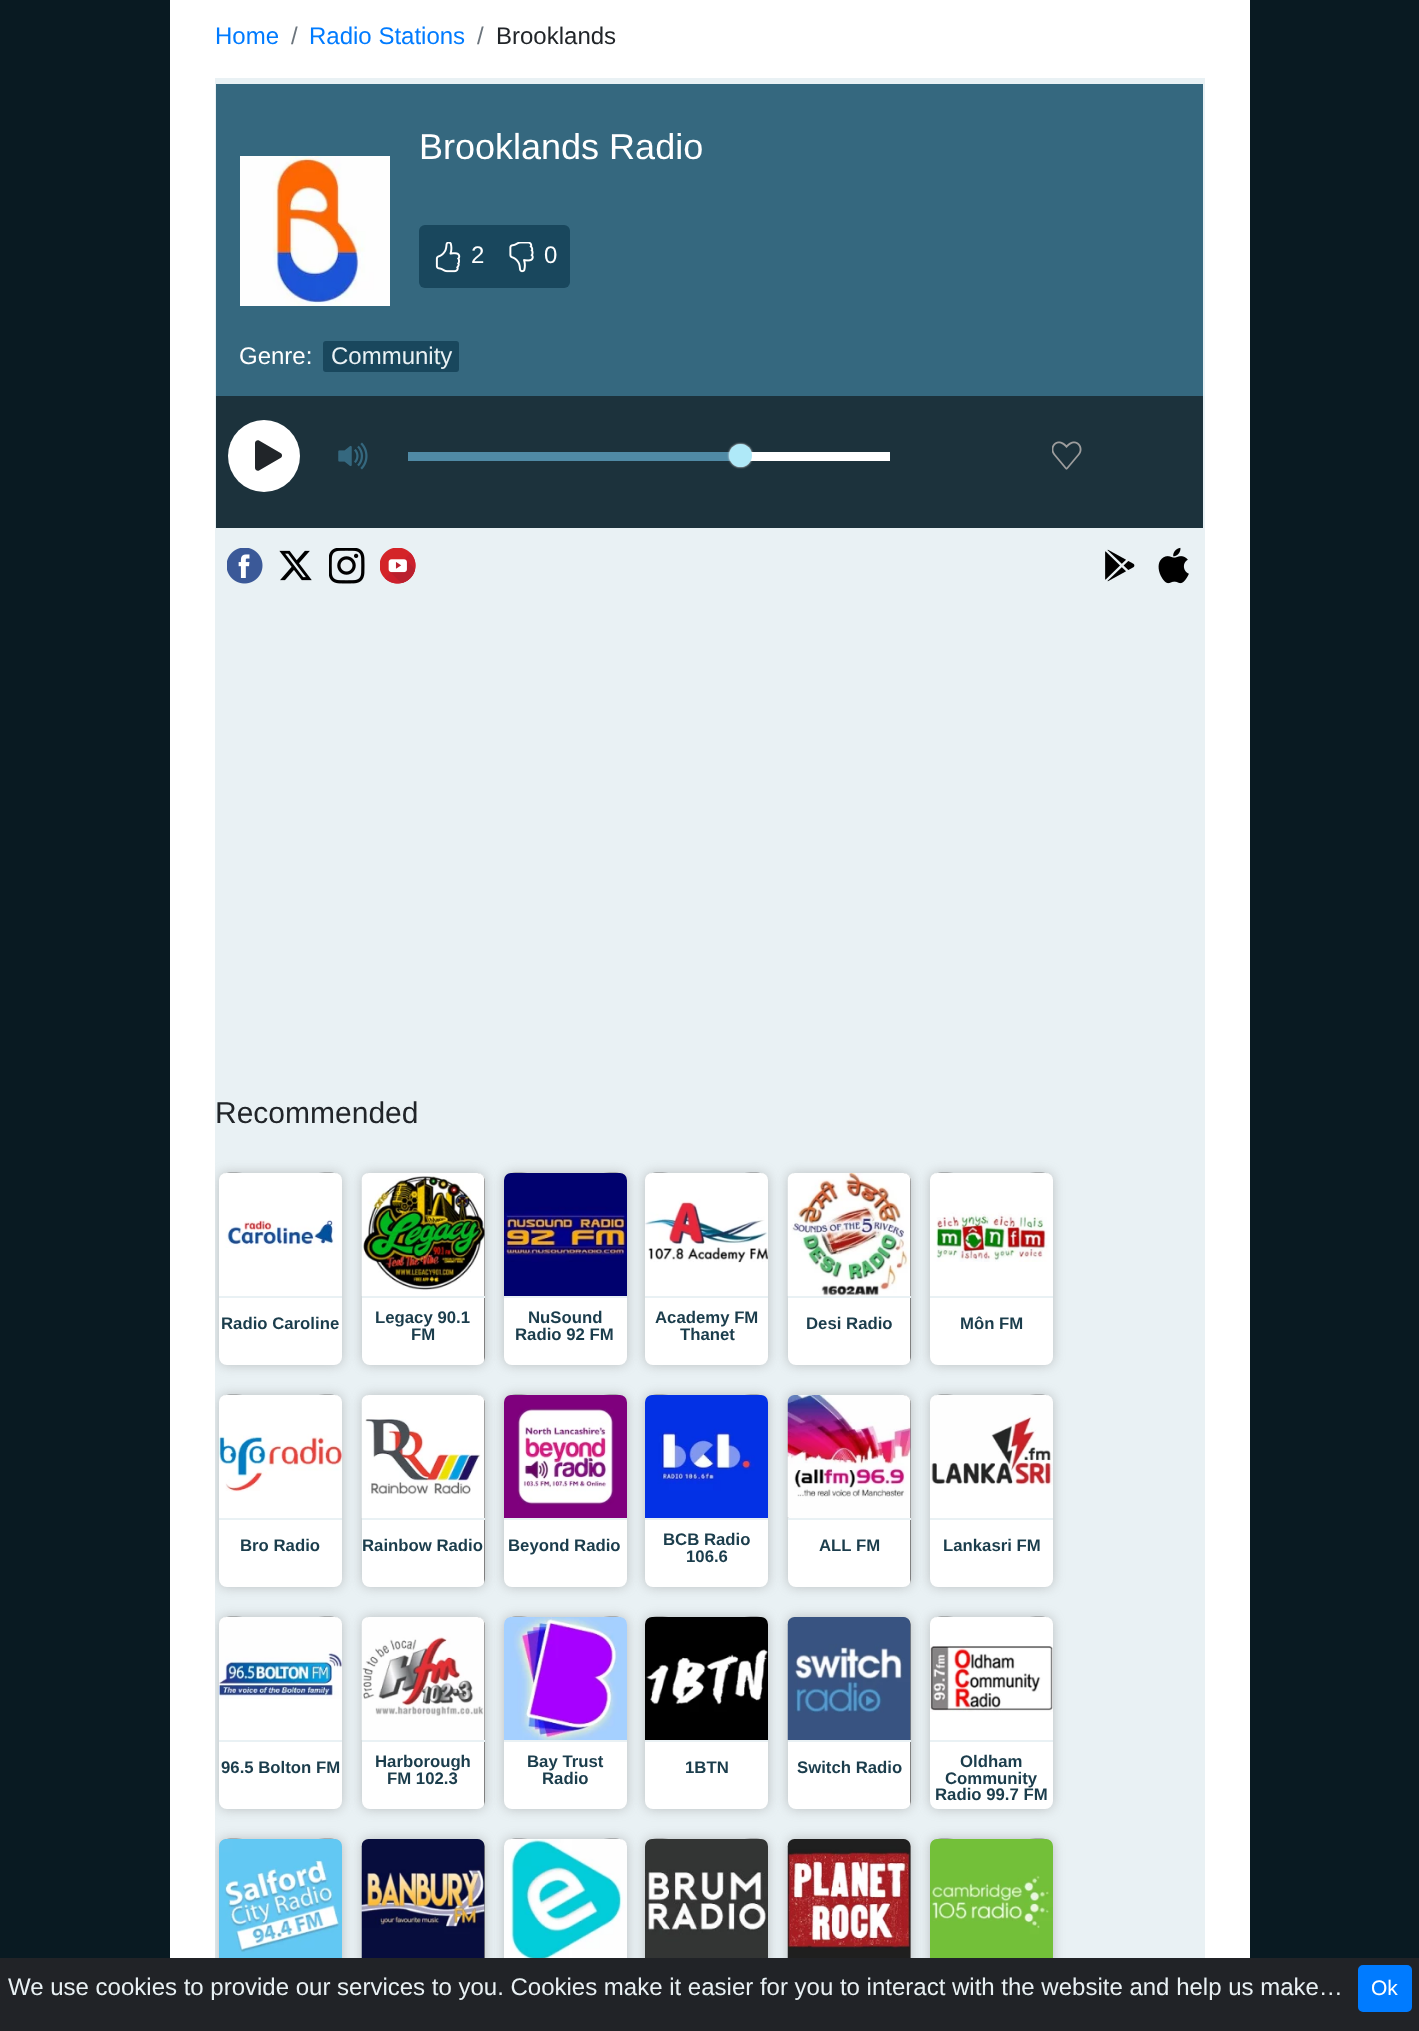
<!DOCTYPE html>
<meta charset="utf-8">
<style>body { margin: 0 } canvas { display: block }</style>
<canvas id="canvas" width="1419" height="2031"></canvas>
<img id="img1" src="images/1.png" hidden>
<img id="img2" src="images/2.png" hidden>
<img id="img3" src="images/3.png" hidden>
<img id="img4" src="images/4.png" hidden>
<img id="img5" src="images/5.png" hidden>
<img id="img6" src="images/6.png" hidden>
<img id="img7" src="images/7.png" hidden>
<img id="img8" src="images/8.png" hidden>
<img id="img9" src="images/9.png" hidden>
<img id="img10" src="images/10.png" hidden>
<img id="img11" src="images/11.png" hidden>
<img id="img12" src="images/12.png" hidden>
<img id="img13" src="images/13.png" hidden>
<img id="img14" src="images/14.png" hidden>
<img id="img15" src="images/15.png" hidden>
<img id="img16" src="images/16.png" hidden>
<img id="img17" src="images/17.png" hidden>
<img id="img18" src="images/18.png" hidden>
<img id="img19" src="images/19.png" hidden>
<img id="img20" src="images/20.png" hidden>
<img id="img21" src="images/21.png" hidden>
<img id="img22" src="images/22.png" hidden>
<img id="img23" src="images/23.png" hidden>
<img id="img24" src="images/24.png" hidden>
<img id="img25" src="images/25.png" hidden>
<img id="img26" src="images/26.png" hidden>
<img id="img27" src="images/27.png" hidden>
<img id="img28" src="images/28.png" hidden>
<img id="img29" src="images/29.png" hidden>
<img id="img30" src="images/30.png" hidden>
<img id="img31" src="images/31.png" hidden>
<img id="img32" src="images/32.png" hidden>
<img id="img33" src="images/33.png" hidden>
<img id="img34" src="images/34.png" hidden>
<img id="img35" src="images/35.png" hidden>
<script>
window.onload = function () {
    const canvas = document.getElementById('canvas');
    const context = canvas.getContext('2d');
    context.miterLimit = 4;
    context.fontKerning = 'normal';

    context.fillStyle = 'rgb(9, 26, 34)';
    context.fillRect(0, 0, 1419, 2031);
    context.fillStyle = 'rgb(255, 255, 255)';
    context.fillRect(170, 0, 1080, 1958);
    context.fillStyle = 'rgb(233, 241, 244)';
    context.fillRect(215, 78, 990, 1880);
    context.fillStyle = 'rgb(53, 104, 127)';
    context.fillRect(216, 84, 987, 312);
    context.drawImage(document.getElementById('img1'), 240, 156, 150, 150);
    context.fillStyle = 'rgb(25, 71, 93)';
    context.beginPath();
    context.roundRect(419, 225, 151, 63, 6);
    context.fill();
    context.drawImage(document.getElementById('img2'), 435, 242, 26, 31);
    context.drawImage(document.getElementById('img3'), 509, 242, 25, 31);
    context.beginPath();
    context.roundRect(324, 342, 134, 29, 2);
    context.fill();
    context.strokeStyle = 'rgb(25, 71, 93)';
    context.lineWidth = 2;
    context.stroke();
    context.fillStyle = 'rgb(28, 50, 60)';
    context.fillRect(216, 396, 987, 132);
    context.fillStyle = 'rgb(255, 255, 255)';
    context.beginPath();
    context.arc(264, 456, 36, 0, 2 * Math.PI);
    context.fill();
    context.fillStyle = 'rgb(33, 37, 41)';
    context.beginPath();
    context.moveTo(280.5, 458);
    context.lineTo(259, 470.5);
    context.bezierCurveTo(257.5, 471.5, 255, 470, 255, 468);
    context.lineTo(255, 443);
    context.bezierCurveTo(255, 441, 257.5, 439.5, 259, 440.5);
    context.lineTo(280.5, 453);
    context.bezierCurveTo(281.5, 453.5, 282, 454.5, 282, 455.5);
    context.bezierCurveTo(282, 456.5, 281.5, 457.5, 280.5, 458);
    context.closePath();
    context.fill();
    context.drawImage(document.getElementById('img4'), 338, 442, 30, 28);
    context.fillStyle = 'rgb(255, 255, 255)';
    context.fillRect(750, 452, 140, 9);
    context.fillStyle = 'rgb(80, 138, 165)';
    context.fillRect(408, 452, 323, 9);
    context.fillStyle = 'rgb(255, 255, 255)';
    context.filter = 'blur(1px)';
    context.beginPath();
    context.roundRect(729, 444, 23, 23, 11.5);
    context.fill();
    context.filter = 'none';
    context.fillStyle = 'rgb(175, 233, 248)';
    context.beginPath();
    context.arc(740.5, 455.5, 11.5, 0, 2 * Math.PI);
    context.fill();
    context.drawImage(document.getElementById('img5'), 1052, 441, 30, 29);
    context.drawImage(document.getElementById('img6'), 227, 548, 36, 36);
    context.drawImage(document.getElementById('img7'), 279, 550, 33, 31);
    context.drawImage(document.getElementById('img8'), 329, 548, 36, 36);
    context.drawImage(document.getElementById('img9'), 380, 548, 36, 36);
    context.drawImage(document.getElementById('img10'), 1105, 549, 30, 33);
    context.drawImage(document.getElementById('img11'), 1158, 547, 31, 37);
    context.save();
    context.beginPath();
    context.rect(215, 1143, 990, 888);
    context.clip();
    context.fillStyle = 'rgba(128, 128, 128, 0.45)';
    context.filter = 'blur(6px)';
    context.beginPath();
    context.roundRect(219, 1173, 123, 192, 8);
    context.fill();
    context.filter = 'none';
    context.restore();
    context.fillStyle = 'rgb(255, 255, 255)';
    context.beginPath();
    context.roundRect(219, 1173, 123, 192, 8);
    context.fill();
    context.fillStyle = 'rgb(128, 128, 128)';
    context.beginPath();
    context.moveTo(226, 1174);
    context.lineTo(335, 1174);
    context.bezierCurveTo(339, 1174, 342, 1178, 342, 1182);
    context.bezierCurveTo(342, 1169, 324, 1173, 316, 1173);
    context.lineTo(245, 1173);
    context.bezierCurveTo(237, 1173, 219, 1169, 219, 1182);
    context.bezierCurveTo(219, 1178, 222, 1174, 226, 1174);
    context.closePath();
    context.fill();
    context.drawImage(document.getElementById('img12'), 219, 1173, 123, 75);
    context.fillStyle = 'rgb(233, 241, 244)';
    context.fillRect(219, 1296, 123, 2);
    context.fillStyle = 'rgba(128, 128, 128, 0.45)';
    context.filter = 'blur(6px)';
    context.beginPath();
    context.roundRect(362, 1173, 123, 192, 8);
    context.fill();
    context.filter = 'none';
    context.fillStyle = 'rgb(255, 255, 255)';
    context.beginPath();
    context.roundRect(362, 1173, 123, 192, 8);
    context.fill();
    context.fillStyle = 'rgb(128, 128, 128)';
    context.beginPath();
    context.moveTo(369, 1174);
    context.lineTo(477, 1174);
    context.bezierCurveTo(481, 1174, 484, 1178, 484, 1182);
    context.lineTo(484, 1359);
    context.lineTo(484, 1362);
    context.bezierCurveTo(484, 1360, 485, 1359, 485, 1357);
    context.lineTo(485, 1181);
    context.bezierCurveTo(485, 1177, 481, 1173, 477, 1173);
    context.lineTo(370, 1173);
    context.bezierCurveTo(366, 1173, 362, 1177, 362, 1181);
    context.lineTo(362, 1182);
    context.bezierCurveTo(362, 1178, 365, 1174, 369, 1174);
    context.closePath();
    context.fill();
    context.drawImage(document.getElementById('img13'), 361, 1173, 124, 123);
    context.fillStyle = 'rgb(233, 241, 244)';
    context.fillRect(362, 1296, 123, 2);
    context.fillStyle = 'rgba(128, 128, 128, 0.45)';
    context.filter = 'blur(6px)';
    context.beginPath();
    context.roundRect(504, 1173, 123, 192, 8);
    context.fill();
    context.filter = 'none';
    context.fillStyle = 'rgb(255, 255, 255)';
    context.beginPath();
    context.roundRect(504, 1173, 123, 192, 8);
    context.fill();
    context.fillStyle = 'rgb(128, 128, 128)';
    context.beginPath();
    context.moveTo(511, 1174);
    context.lineTo(620, 1174);
    context.bezierCurveTo(624, 1174, 627, 1178, 627, 1182);
    context.bezierCurveTo(627, 1169, 609, 1173, 601, 1173);
    context.lineTo(530, 1173);
    context.bezierCurveTo(522, 1173, 504, 1169, 504, 1182);
    context.bezierCurveTo(504, 1178, 507, 1174, 511, 1174);
    context.closePath();
    context.fill();
    context.drawImage(document.getElementById('img14'), 504, 1173, 123, 123);
    context.fillStyle = 'rgb(233, 241, 244)';
    context.fillRect(504, 1296, 123, 2);
    context.fillStyle = 'rgba(128, 128, 128, 0.45)';
    context.filter = 'blur(6px)';
    context.beginPath();
    context.roundRect(645, 1173, 123, 192, 8);
    context.fill();
    context.filter = 'none';
    context.fillStyle = 'rgb(255, 255, 255)';
    context.beginPath();
    context.roundRect(645, 1173, 123, 192, 8);
    context.fill();
    context.fillStyle = 'rgb(128, 128, 128)';
    context.beginPath();
    context.moveTo(652, 1174);
    context.lineTo(761, 1174);
    context.bezierCurveTo(765, 1174, 768, 1178, 768, 1182);
    context.bezierCurveTo(768, 1169, 750, 1173, 742, 1173);
    context.lineTo(671, 1173);
    context.bezierCurveTo(663, 1173, 645, 1169, 645, 1182);
    context.bezierCurveTo(645, 1178, 648, 1174, 652, 1174);
    context.closePath();
    context.fill();
    context.drawImage(document.getElementById('img15'), 645, 1173, 123, 90);
    context.fillStyle = 'rgb(233, 241, 244)';
    context.fillRect(645, 1296, 123, 2);
    context.fillStyle = 'rgba(128, 128, 128, 0.45)';
    context.filter = 'blur(6px)';
    context.beginPath();
    context.roundRect(788, 1173, 123, 192, 8);
    context.fill();
    context.filter = 'none';
    context.fillStyle = 'rgb(255, 255, 255)';
    context.beginPath();
    context.roundRect(788, 1173, 123, 192, 8);
    context.fill();
    context.fillStyle = 'rgb(128, 128, 128)';
    context.beginPath();
    context.moveTo(795, 1174);
    context.lineTo(903, 1174);
    context.bezierCurveTo(907, 1174, 910, 1178, 910, 1182);
    context.lineTo(910, 1359);
    context.lineTo(910, 1362);
    context.bezierCurveTo(910, 1360, 911, 1359, 911, 1357);
    context.lineTo(911, 1181);
    context.bezierCurveTo(911, 1177, 907, 1173, 903, 1173);
    context.lineTo(796, 1173);
    context.bezierCurveTo(792, 1173, 788, 1177, 788, 1181);
    context.lineTo(788, 1182);
    context.bezierCurveTo(788, 1178, 791, 1174, 795, 1174);
    context.closePath();
    context.fill();
    context.drawImage(document.getElementById('img16'), 787, 1173, 124, 123);
    context.fillStyle = 'rgb(233, 241, 244)';
    context.fillRect(788, 1296, 123, 2);
    context.fillStyle = 'rgba(128, 128, 128, 0.45)';
    context.filter = 'blur(6px)';
    context.beginPath();
    context.roundRect(930, 1173, 123, 192, 8);
    context.fill();
    context.filter = 'none';
    context.fillStyle = 'rgb(255, 255, 255)';
    context.beginPath();
    context.roundRect(930, 1173, 123, 192, 8);
    context.fill();
    context.fillStyle = 'rgb(128, 128, 128)';
    context.beginPath();
    context.moveTo(937, 1174);
    context.lineTo(1046, 1174);
    context.bezierCurveTo(1050, 1174, 1053, 1178, 1053, 1182);
    context.bezierCurveTo(1053, 1169, 1035, 1173, 1027, 1173);
    context.lineTo(956, 1173);
    context.bezierCurveTo(948, 1173, 930, 1169, 930, 1182);
    context.bezierCurveTo(930, 1178, 933, 1174, 937, 1174);
    context.closePath();
    context.fill();
    context.drawImage(document.getElementById('img17'), 930, 1173, 123, 89);
    context.fillStyle = 'rgb(233, 241, 244)';
    context.fillRect(930, 1296, 123, 2);
    context.save();
    context.beginPath();
    context.rect(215, 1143, 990, 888);
    context.clip();
    context.fillStyle = 'rgba(128, 128, 128, 0.45)';
    context.filter = 'blur(6px)';
    context.beginPath();
    context.roundRect(219, 1395, 123, 192, 8);
    context.fill();
    context.filter = 'none';
    context.restore();
    context.fillStyle = 'rgb(255, 255, 255)';
    context.beginPath();
    context.roundRect(219, 1395, 123, 192, 8);
    context.fill();
    context.fillStyle = 'rgb(128, 128, 128)';
    context.beginPath();
    context.moveTo(226, 1396);
    context.lineTo(335, 1396);
    context.bezierCurveTo(339, 1396, 342, 1400, 342, 1404);
    context.bezierCurveTo(342, 1391, 324, 1395, 316, 1395);
    context.lineTo(245, 1395);
    context.bezierCurveTo(237, 1395, 219, 1391, 219, 1404);
    context.bezierCurveTo(219, 1400, 222, 1396, 226, 1396);
    context.closePath();
    context.fill();
    context.drawImage(document.getElementById('img18'), 219, 1395, 123, 97);
    context.fillStyle = 'rgb(233, 241, 244)';
    context.fillRect(219, 1518, 123, 2);
    context.fillStyle = 'rgba(128, 128, 128, 0.45)';
    context.filter = 'blur(6px)';
    context.beginPath();
    context.roundRect(362, 1395, 123, 192, 8);
    context.fill();
    context.filter = 'none';
    context.fillStyle = 'rgb(255, 255, 255)';
    context.beginPath();
    context.roundRect(362, 1395, 123, 192, 8);
    context.fill();
    context.fillStyle = 'rgb(128, 128, 128)';
    context.beginPath();
    context.moveTo(369, 1396);
    context.lineTo(477, 1396);
    context.bezierCurveTo(481, 1396, 484, 1400, 484, 1404);
    context.lineTo(484, 1581);
    context.lineTo(484, 1584);
    context.bezierCurveTo(484, 1582, 485, 1581, 485, 1579);
    context.lineTo(485, 1403);
    context.bezierCurveTo(485, 1399, 481, 1395, 477, 1395);
    context.lineTo(370, 1395);
    context.bezierCurveTo(366, 1395, 362, 1399, 362, 1403);
    context.lineTo(362, 1404);
    context.bezierCurveTo(362, 1400, 365, 1396, 369, 1396);
    context.closePath();
    context.fill();
    context.drawImage(document.getElementById('img19'), 361, 1395, 124, 123);
    context.fillStyle = 'rgb(233, 241, 244)';
    context.fillRect(362, 1518, 123, 2);
    context.fillStyle = 'rgba(128, 128, 128, 0.45)';
    context.filter = 'blur(6px)';
    context.beginPath();
    context.roundRect(504, 1395, 123, 192, 8);
    context.fill();
    context.filter = 'none';
    context.fillStyle = 'rgb(255, 255, 255)';
    context.beginPath();
    context.roundRect(504, 1395, 123, 192, 8);
    context.fill();
    context.fillStyle = 'rgb(128, 128, 128)';
    context.beginPath();
    context.moveTo(511, 1396);
    context.lineTo(620, 1396);
    context.bezierCurveTo(624, 1396, 627, 1400, 627, 1404);
    context.bezierCurveTo(627, 1391, 609, 1395, 601, 1395);
    context.lineTo(530, 1395);
    context.bezierCurveTo(522, 1395, 504, 1391, 504, 1404);
    context.bezierCurveTo(504, 1400, 507, 1396, 511, 1396);
    context.closePath();
    context.fill();
    context.drawImage(document.getElementById('img20'), 504, 1395, 123, 123);
    context.fillStyle = 'rgb(233, 241, 244)';
    context.fillRect(504, 1518, 123, 2);
    context.fillStyle = 'rgba(128, 128, 128, 0.45)';
    context.filter = 'blur(6px)';
    context.beginPath();
    context.roundRect(645, 1395, 123, 192, 8);
    context.fill();
    context.filter = 'none';
    context.fillStyle = 'rgb(255, 255, 255)';
    context.beginPath();
    context.roundRect(645, 1395, 123, 192, 8);
    context.fill();
    context.fillStyle = 'rgb(128, 128, 128)';
    context.beginPath();
    context.moveTo(652, 1396);
    context.lineTo(761, 1396);
    context.bezierCurveTo(765, 1396, 768, 1400, 768, 1404);
    context.bezierCurveTo(768, 1391, 750, 1395, 742, 1395);
    context.lineTo(671, 1395);
    context.bezierCurveTo(663, 1395, 645, 1391, 645, 1404);
    context.bezierCurveTo(645, 1400, 648, 1396, 652, 1396);
    context.closePath();
    context.fill();
    context.drawImage(document.getElementById('img21'), 645, 1395, 123, 123);
    context.fillStyle = 'rgb(233, 241, 244)';
    context.fillRect(645, 1518, 123, 2);
    context.fillStyle = 'rgba(128, 128, 128, 0.45)';
    context.filter = 'blur(6px)';
    context.beginPath();
    context.roundRect(788, 1395, 123, 192, 8);
    context.fill();
    context.filter = 'none';
    context.fillStyle = 'rgb(255, 255, 255)';
    context.beginPath();
    context.roundRect(788, 1395, 123, 192, 8);
    context.fill();
    context.fillStyle = 'rgb(128, 128, 128)';
    context.beginPath();
    context.moveTo(795, 1396);
    context.lineTo(903, 1396);
    context.bezierCurveTo(907, 1396, 910, 1400, 910, 1404);
    context.lineTo(910, 1581);
    context.lineTo(910, 1584);
    context.bezierCurveTo(910, 1582, 911, 1581, 911, 1579);
    context.lineTo(911, 1403);
    context.bezierCurveTo(911, 1399, 907, 1395, 903, 1395);
    context.lineTo(796, 1395);
    context.bezierCurveTo(792, 1395, 788, 1399, 788, 1403);
    context.lineTo(788, 1404);
    context.bezierCurveTo(788, 1400, 791, 1396, 795, 1396);
    context.closePath();
    context.fill();
    context.drawImage(document.getElementById('img22'), 787, 1395, 124, 123);
    context.fillStyle = 'rgb(233, 241, 244)';
    context.fillRect(788, 1518, 123, 2);
    context.fillStyle = 'rgba(128, 128, 128, 0.45)';
    context.filter = 'blur(6px)';
    context.beginPath();
    context.roundRect(930, 1395, 123, 192, 8);
    context.fill();
    context.filter = 'none';
    context.fillStyle = 'rgb(255, 255, 255)';
    context.beginPath();
    context.roundRect(930, 1395, 123, 192, 8);
    context.fill();
    context.fillStyle = 'rgb(128, 128, 128)';
    context.beginPath();
    context.moveTo(937, 1396);
    context.lineTo(1046, 1396);
    context.bezierCurveTo(1050, 1396, 1053, 1400, 1053, 1404);
    context.bezierCurveTo(1053, 1391, 1035, 1395, 1027, 1395);
    context.lineTo(956, 1395);
    context.bezierCurveTo(948, 1395, 930, 1391, 930, 1404);
    context.bezierCurveTo(930, 1400, 933, 1396, 937, 1396);
    context.closePath();
    context.fill();
    context.drawImage(document.getElementById('img23'), 930, 1395, 123, 90);
    context.fillStyle = 'rgb(233, 241, 244)';
    context.fillRect(930, 1518, 123, 2);
    context.save();
    context.beginPath();
    context.rect(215, 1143, 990, 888);
    context.clip();
    context.fillStyle = 'rgba(128, 128, 128, 0.45)';
    context.filter = 'blur(6px)';
    context.beginPath();
    context.roundRect(219, 1617, 123, 192, 8);
    context.fill();
    context.filter = 'none';
    context.restore();
    context.fillStyle = 'rgb(255, 255, 255)';
    context.beginPath();
    context.roundRect(219, 1617, 123, 192, 8);
    context.fill();
    context.fillStyle = 'rgb(128, 128, 128)';
    context.beginPath();
    context.moveTo(226, 1618);
    context.lineTo(335, 1618);
    context.bezierCurveTo(339, 1618, 342, 1622, 342, 1626);
    context.bezierCurveTo(342, 1613, 324, 1617, 316, 1617);
    context.lineTo(245, 1617);
    context.bezierCurveTo(237, 1617, 219, 1613, 219, 1626);
    context.bezierCurveTo(219, 1622, 222, 1618, 226, 1618);
    context.closePath();
    context.fill();
    context.drawImage(document.getElementById('img24'), 219, 1617, 123, 82);
    context.fillStyle = 'rgb(233, 241, 244)';
    context.fillRect(219, 1740, 123, 2);
    context.fillStyle = 'rgba(128, 128, 128, 0.45)';
    context.filter = 'blur(6px)';
    context.beginPath();
    context.roundRect(362, 1617, 123, 192, 8);
    context.fill();
    context.filter = 'none';
    context.fillStyle = 'rgb(255, 255, 255)';
    context.beginPath();
    context.roundRect(362, 1617, 123, 192, 8);
    context.fill();
    context.fillStyle = 'rgb(128, 128, 128)';
    context.beginPath();
    context.moveTo(369, 1618);
    context.lineTo(477, 1618);
    context.bezierCurveTo(481, 1618, 484, 1622, 484, 1626);
    context.lineTo(484, 1803);
    context.lineTo(484, 1806);
    context.bezierCurveTo(484, 1804, 485, 1803, 485, 1801);
    context.lineTo(485, 1625);
    context.bezierCurveTo(485, 1621, 481, 1617, 477, 1617);
    context.lineTo(370, 1617);
    context.bezierCurveTo(366, 1617, 362, 1621, 362, 1625);
    context.lineTo(362, 1626);
    context.bezierCurveTo(362, 1622, 365, 1618, 369, 1618);
    context.closePath();
    context.fill();
    context.drawImage(document.getElementById('img25'), 361, 1617, 124, 123);
    context.fillStyle = 'rgb(233, 241, 244)';
    context.fillRect(362, 1740, 123, 2);
    context.fillStyle = 'rgba(128, 128, 128, 0.45)';
    context.filter = 'blur(6px)';
    context.beginPath();
    context.roundRect(504, 1617, 123, 192, 8);
    context.fill();
    context.filter = 'none';
    context.fillStyle = 'rgb(255, 255, 255)';
    context.beginPath();
    context.roundRect(504, 1617, 123, 192, 8);
    context.fill();
    context.fillStyle = 'rgb(128, 128, 128)';
    context.beginPath();
    context.moveTo(511, 1618);
    context.lineTo(620, 1618);
    context.bezierCurveTo(624, 1618, 627, 1622, 627, 1626);
    context.bezierCurveTo(627, 1613, 609, 1617, 601, 1617);
    context.lineTo(530, 1617);
    context.bezierCurveTo(522, 1617, 504, 1613, 504, 1626);
    context.bezierCurveTo(504, 1622, 507, 1618, 511, 1618);
    context.closePath();
    context.fill();
    context.drawImage(document.getElementById('img26'), 504, 1617, 123, 123);
    context.fillStyle = 'rgb(233, 241, 244)';
    context.fillRect(504, 1740, 123, 2);
    context.fillStyle = 'rgba(128, 128, 128, 0.45)';
    context.filter = 'blur(6px)';
    context.beginPath();
    context.roundRect(645, 1617, 123, 192, 8);
    context.fill();
    context.filter = 'none';
    context.fillStyle = 'rgb(255, 255, 255)';
    context.beginPath();
    context.roundRect(645, 1617, 123, 192, 8);
    context.fill();
    context.fillStyle = 'rgb(128, 128, 128)';
    context.beginPath();
    context.moveTo(652, 1618);
    context.lineTo(761, 1618);
    context.bezierCurveTo(765, 1618, 768, 1622, 768, 1626);
    context.bezierCurveTo(768, 1613, 750, 1617, 742, 1617);
    context.lineTo(671, 1617);
    context.bezierCurveTo(663, 1617, 645, 1613, 645, 1626);
    context.bezierCurveTo(645, 1622, 648, 1618, 652, 1618);
    context.closePath();
    context.fill();
    context.drawImage(document.getElementById('img27'), 645, 1617, 123, 123);
    context.fillStyle = 'rgb(233, 241, 244)';
    context.fillRect(645, 1740, 123, 2);
    context.fillStyle = 'rgba(128, 128, 128, 0.45)';
    context.filter = 'blur(6px)';
    context.beginPath();
    context.roundRect(788, 1617, 123, 192, 8);
    context.fill();
    context.filter = 'none';
    context.fillStyle = 'rgb(255, 255, 255)';
    context.beginPath();
    context.roundRect(788, 1617, 123, 192, 8);
    context.fill();
    context.fillStyle = 'rgb(128, 128, 128)';
    context.beginPath();
    context.moveTo(795, 1618);
    context.lineTo(903, 1618);
    context.bezierCurveTo(907, 1618, 910, 1622, 910, 1626);
    context.lineTo(910, 1803);
    context.lineTo(910, 1806);
    context.bezierCurveTo(910, 1804, 911, 1803, 911, 1801);
    context.lineTo(911, 1625);
    context.bezierCurveTo(911, 1621, 907, 1617, 903, 1617);
    context.lineTo(796, 1617);
    context.bezierCurveTo(792, 1617, 788, 1621, 788, 1625);
    context.lineTo(788, 1626);
    context.bezierCurveTo(788, 1622, 791, 1618, 795, 1618);
    context.closePath();
    context.fill();
    context.drawImage(document.getElementById('img28'), 787, 1617, 124, 123);
    context.fillStyle = 'rgb(233, 241, 244)';
    context.fillRect(788, 1740, 123, 2);
    context.fillStyle = 'rgba(128, 128, 128, 0.45)';
    context.filter = 'blur(6px)';
    context.beginPath();
    context.roundRect(930, 1617, 123, 192, 8);
    context.fill();
    context.filter = 'none';
    context.fillStyle = 'rgb(255, 255, 255)';
    context.beginPath();
    context.roundRect(930, 1617, 123, 192, 8);
    context.fill();
    context.fillStyle = 'rgb(128, 128, 128)';
    context.beginPath();
    context.moveTo(937, 1618);
    context.lineTo(1046, 1618);
    context.bezierCurveTo(1050, 1618, 1053, 1622, 1053, 1626);
    context.bezierCurveTo(1053, 1613, 1035, 1617, 1027, 1617);
    context.lineTo(956, 1617);
    context.bezierCurveTo(948, 1617, 930, 1613, 930, 1626);
    context.bezierCurveTo(930, 1622, 933, 1618, 937, 1618);
    context.closePath();
    context.fill();
    context.drawImage(document.getElementById('img29'), 930, 1617, 123, 95);
    context.fillStyle = 'rgb(233, 241, 244)';
    context.fillRect(930, 1740, 123, 2);
    context.save();
    context.beginPath();
    context.rect(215, 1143, 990, 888);
    context.clip();
    context.fillStyle = 'rgba(128, 128, 128, 0.45)';
    context.filter = 'blur(6px)';
    context.beginPath();
    context.roundRect(219, 1839, 123, 192, 8);
    context.fill();
    context.filter = 'none';
    context.restore();
    context.fillStyle = 'rgb(128, 128, 128)';
    context.beginPath();
    context.moveTo(226, 1840);
    context.lineTo(335, 1840);
    context.bezierCurveTo(339, 1840, 342, 1844, 342, 1848);
    context.bezierCurveTo(342, 1835, 324, 1839, 316, 1839);
    context.lineTo(245, 1839);
    context.bezierCurveTo(237, 1839, 219, 1835, 219, 1848);
    context.bezierCurveTo(219, 1844, 222, 1840, 226, 1840);
    context.closePath();
    context.fill();
    context.drawImage(document.getElementById('img30'), 219, 1839, 123, 119);
    context.fillStyle = 'rgba(128, 128, 128, 0.45)';
    context.filter = 'blur(6px)';
    context.beginPath();
    context.roundRect(362, 1839, 123, 192, 8);
    context.fill();
    context.filter = 'none';
    context.fillStyle = 'rgb(128, 128, 128)';
    context.beginPath();
    context.moveTo(369, 1840);
    context.lineTo(477, 1840);
    context.bezierCurveTo(481, 1840, 484, 1844, 484, 1848);
    context.lineTo(484, 2025);
    context.lineTo(484, 2028);
    context.bezierCurveTo(484, 2026, 485, 2025, 485, 2023);
    context.lineTo(485, 1847);
    context.bezierCurveTo(485, 1843, 481, 1839, 477, 1839);
    context.lineTo(370, 1839);
    context.bezierCurveTo(366, 1839, 362, 1843, 362, 1847);
    context.lineTo(362, 1848);
    context.bezierCurveTo(362, 1844, 365, 1840, 369, 1840);
    context.closePath();
    context.fill();
    context.drawImage(document.getElementById('img31'), 361, 1839, 124, 119);
    context.fillStyle = 'rgba(128, 128, 128, 0.45)';
    context.filter = 'blur(6px)';
    context.beginPath();
    context.roundRect(504, 1839, 123, 192, 8);
    context.fill();
    context.filter = 'none';
    context.fillStyle = 'rgb(128, 128, 128)';
    context.beginPath();
    context.moveTo(511, 1840);
    context.lineTo(620, 1840);
    context.bezierCurveTo(624, 1840, 627, 1844, 627, 1848);
    context.bezierCurveTo(627, 1835, 609, 1839, 601, 1839);
    context.lineTo(530, 1839);
    context.bezierCurveTo(522, 1839, 504, 1835, 504, 1848);
    context.bezierCurveTo(504, 1844, 507, 1840, 511, 1840);
    context.closePath();
    context.fill();
    context.drawImage(document.getElementById('img32'), 504, 1839, 123, 119);
    context.fillStyle = 'rgba(128, 128, 128, 0.45)';
    context.filter = 'blur(6px)';
    context.beginPath();
    context.roundRect(645, 1839, 123, 192, 8);
    context.fill();
    context.filter = 'none';
    context.fillStyle = 'rgb(128, 128, 128)';
    context.beginPath();
    context.moveTo(652, 1840);
    context.lineTo(761, 1840);
    context.bezierCurveTo(765, 1840, 768, 1844, 768, 1848);
    context.bezierCurveTo(768, 1835, 750, 1839, 742, 1839);
    context.lineTo(671, 1839);
    context.bezierCurveTo(663, 1839, 645, 1835, 645, 1848);
    context.bezierCurveTo(645, 1844, 648, 1840, 652, 1840);
    context.closePath();
    context.fill();
    context.drawImage(document.getElementById('img33'), 645, 1839, 123, 119);
    context.fillStyle = 'rgba(128, 128, 128, 0.45)';
    context.filter = 'blur(6px)';
    context.beginPath();
    context.roundRect(788, 1839, 123, 192, 8);
    context.fill();
    context.filter = 'none';
    context.fillStyle = 'rgb(128, 128, 128)';
    context.beginPath();
    context.moveTo(795, 1840);
    context.lineTo(903, 1840);
    context.bezierCurveTo(907, 1840, 910, 1844, 910, 1848);
    context.lineTo(910, 2025);
    context.lineTo(910, 2028);
    context.bezierCurveTo(910, 2026, 911, 2025, 911, 2023);
    context.lineTo(911, 1847);
    context.bezierCurveTo(911, 1843, 907, 1839, 903, 1839);
    context.lineTo(796, 1839);
    context.bezierCurveTo(792, 1839, 788, 1843, 788, 1847);
    context.lineTo(788, 1848);
    context.bezierCurveTo(788, 1844, 791, 1840, 795, 1840);
    context.closePath();
    context.fill();
    context.drawImage(document.getElementById('img34'), 787, 1839, 124, 119);
    context.fillStyle = 'rgba(128, 128, 128, 0.45)';
    context.filter = 'blur(6px)';
    context.beginPath();
    context.roundRect(930, 1839, 123, 192, 8);
    context.fill();
    context.filter = 'none';
    context.fillStyle = 'rgb(128, 128, 128)';
    context.beginPath();
    context.moveTo(937, 1840);
    context.lineTo(1046, 1840);
    context.bezierCurveTo(1050, 1840, 1053, 1844, 1053, 1848);
    context.bezierCurveTo(1053, 1835, 1035, 1839, 1027, 1839);
    context.lineTo(956, 1839);
    context.bezierCurveTo(948, 1839, 930, 1835, 930, 1848);
    context.bezierCurveTo(930, 1844, 933, 1840, 937, 1840);
    context.closePath();
    context.fill();
    context.drawImage(document.getElementById('img35'), 930, 1839, 123, 119);
    context.fillStyle = 'rgb(33, 35, 39)';
    context.fillRect(0, 1958, 1419, 73);
    context.fillStyle = 'rgb(0, 123, 255)';
    context.beginPath();
    context.roundRect(1359, 1966, 52, 45, 4);
    context.fill();
    context.strokeStyle = 'rgb(0, 123, 255)';
    context.stroke();
    context.font = '24px Liberation Sans';
    context.fillText('Home', 215, 44);
    context.fillStyle = 'rgb(108, 117, 125)';
    context.fillText('/', 291, 44);
    context.fillStyle = 'rgb(0, 123, 255)';
    context.fillText('Radio Stations', 309, 44);
    context.fillStyle = 'rgb(108, 117, 125)';
    context.fillText('/', 477, 44);
    context.fillStyle = 'rgb(33, 37, 41)';
    context.fillText('Brooklands', 496, 44);
    context.font = '36px Liberation Sans';
    context.fillStyle = 'rgb(255, 255, 255)';
    context.fillText('Brooklands Radio', 419, 159);
    context.font = '24px Liberation Sans';
    context.fillText('2', 471, 263);
    context.fillText('0', 544, 263);
    context.fillText('Genre:', 239, 364);
    context.fillStyle = 'rgb(233, 241, 244)';
    context.fillText('Community', 331, 364);
    context.font = '30px Liberation Sans';
    context.fillStyle = 'rgb(33, 37, 41)';
    context.fillText('Recommended', 215, 1123);
    context.font = 'bold 16.75px Liberation Sans';
    context.fillStyle = 'rgb(27, 61, 76)';
    context.fillText('Radio Caroline', 221, 1329);
    context.fillText('Legacy 90.1', 375, 1323);
    context.fillText('FM', 411, 1340);
    context.fillText('NuSound', 528, 1323);
    context.fillText('Radio 92 FM', 515, 1340);
    context.fillText('Academy FM', 655, 1323);
    context.fillText('Thanet', 680, 1340);
    context.fillText('Desi Radio', 806, 1329);
    context.fillText('Môn FM', 960, 1329);
    context.fillText('Bro Radio', 240, 1551);
    context.fillText('Rainbow Radio', 362, 1551);
    context.fillText('Beyond Radio', 508, 1551);
    context.fillText('BCB Radio', 663, 1545);
    context.fillText('106.6', 686, 1562);
    context.fillText('ALL FM', 819, 1551);
    context.fillText('Lankasri FM', 943, 1551);
    context.fillText('96.5 Bolton FM', 221, 1773);
    context.fillText('Harborough', 375, 1767);
    context.fillText('FM 102.3', 387, 1784);
    context.fillText('Bay Trust', 527, 1767);
    context.fillText('Radio', 542, 1784);
    context.fillText('1BTN', 685, 1773);
    context.fillText('Switch Radio', 797, 1773);
    context.fillText('Oldham', 960, 1767);
    context.fillText('Community', 945, 1784);
    context.fillText('Radio 99.7 FM', 935, 1800);
    context.font = '24px Liberation Sans';
    context.fillStyle = 'rgb(233, 241, 244)';
    context.fillText('We use cookies to provide our services to you. Cookies make it easier for you to interact with the website and help us make…', 8, 1995);
    context.font = '21px Liberation Sans';
    context.fillStyle = 'rgb(255, 255, 255)';
    context.fillText('Ok', 1371, 1995);
};
</script>
